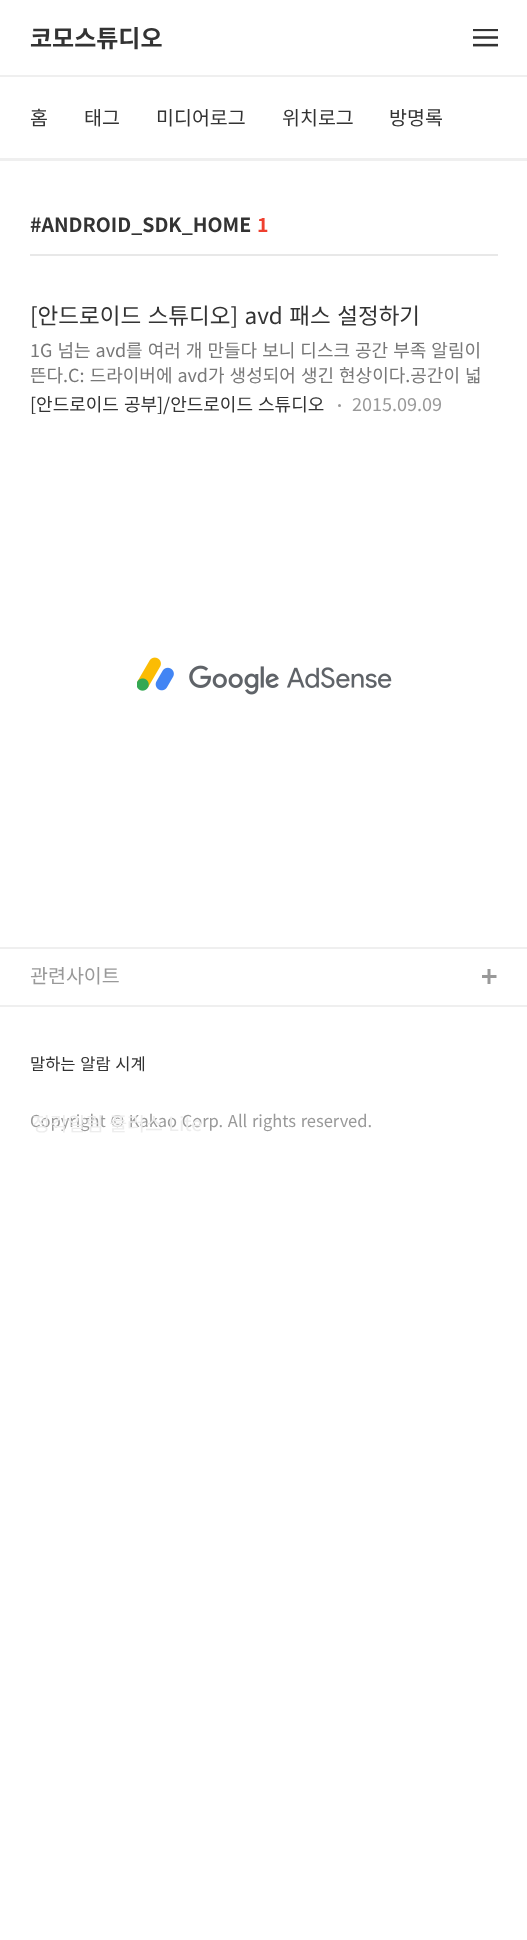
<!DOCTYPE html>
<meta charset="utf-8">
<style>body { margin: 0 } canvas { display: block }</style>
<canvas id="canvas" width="527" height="1940"></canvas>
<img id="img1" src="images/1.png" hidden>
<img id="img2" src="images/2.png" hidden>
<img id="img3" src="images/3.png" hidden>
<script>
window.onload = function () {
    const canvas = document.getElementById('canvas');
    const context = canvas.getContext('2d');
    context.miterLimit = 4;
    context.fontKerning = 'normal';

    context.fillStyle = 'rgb(255, 255, 255)';
    context.fillRect(0, 0, 527, 1940);
    context.fillStyle = 'rgb(239, 239, 239)';
    context.fillRect(0, 158, 527, 3);
    context.drawImage(document.getElementById('img1'), 473, 29, 25, 18);
    context.fillRect(0, 75, 527, 2);
    context.fillStyle = 'rgb(232, 232, 232)';
    context.fillRect(30, 254, 468, 2);
    context.fillStyle = 'rgb(153, 153, 153)';
    context.beginPath();
    context.arc(339.5, 405.5, 1.5, 0, 2 * Math.PI);
    context.fill();
    context.drawImage(document.getElementById('img2'), 137, 657, 255, 38);
    context.fillStyle = 'rgb(239, 239, 239)';
    context.fillRect(0, 947, 527, 2);
    context.drawImage(document.getElementById('img3'), 482, 969, 15, 15);
    context.fillRect(0, 1005, 527, 2);
    context.font = 'bold 24px Noto Sans KR';
    context.fillStyle = 'rgb(51, 51, 51)';
    context.fillText('코모스튜디오', 30, 47);
    context.font = '19.5px Noto Sans KR';
    context.fillText('홈', 30, 125);
    context.fillText('태그', 84, 125);
    context.fillText('미디어로그', 156, 125);
    context.fillText('위치로그', 282, 125);
    context.fillText('방명록', 389, 125);
    context.font = 'bold 19.5px Noto Sans KR';
    context.fillText('#ANDROID_SDK_HOME', 30, 232);
    context.fillStyle = 'rgb(239, 64, 47)';
    context.fillText('1', 257, 232);
    context.wordSpacing = '1.5px';
    context.font = '22.5px Noto Sans KR';
    context.fillStyle = 'rgb(51, 51, 51)';
    context.fillText('[안드로이드 스튜디오] avd 패스 설정하기', 30, 324);
    context.wordSpacing = '1px';
    context.font = '18px Noto Sans KR';
    context.fillStyle = 'rgb(119, 119, 119)';
    context.fillText('1G 넘는 avd를 여러 개 만들다 보니 디스크 공간 부족 알림이', 30, 357);
    context.fillText('뜬다.C: 드라이버에 avd가 생성되어 생긴 현상이다.공간이 넓', 30, 382);
    context.fillStyle = 'rgb(51, 51, 51)';
    context.fillText('[안드로이드 공부]/안드로이드 스튜디오', 30, 411);
    context.wordSpacing = '0px';
    context.fillStyle = 'rgb(153, 153, 153)';
    context.fillText('2015.09.09', 352, 411);
    context.font = '19.5px Noto Sans KR';
    context.fillText('관련사이트', 30, 983);
    context.wordSpacing = '1px';
    context.font = '16.5px Noto Sans KR';
    context.fillStyle = 'rgb(51, 51, 51)';
    context.fillText('말하는 알람 시계', 30, 1070);
    context.fillStyle = 'rgb(153, 153, 153)';
    context.fillText('Copyright © Kakao Corp. All rights reserved.', 30, 1127);
    context.font = '19.5px Noto Sans KR';
    context.fillStyle = 'rgb(237, 237, 237)';
    context.fillText('정각알림 플러스 Lite', 32, 1131);
};
</script>
